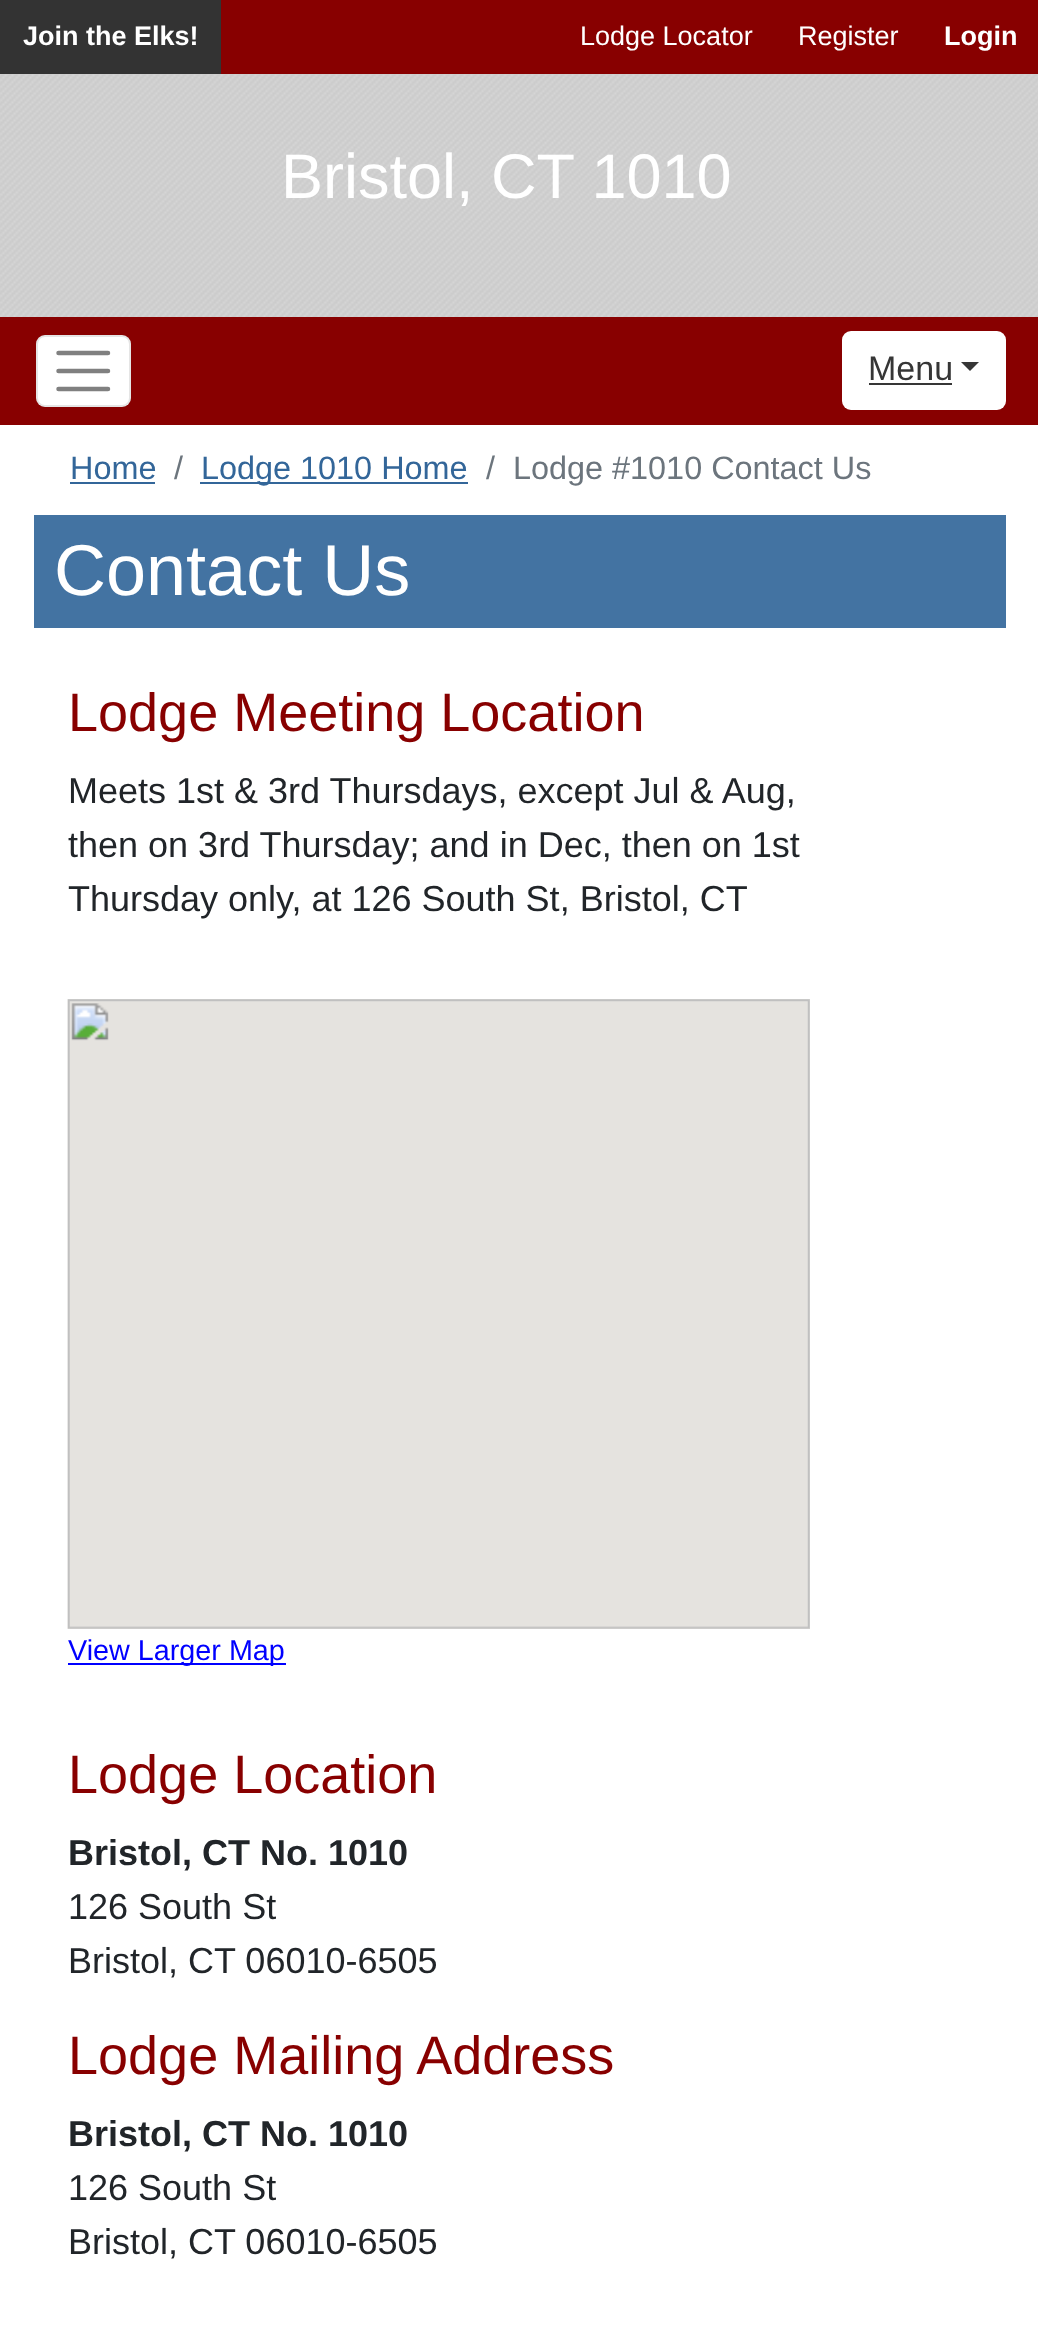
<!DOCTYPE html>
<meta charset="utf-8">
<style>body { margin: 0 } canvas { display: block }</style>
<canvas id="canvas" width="1038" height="2340"></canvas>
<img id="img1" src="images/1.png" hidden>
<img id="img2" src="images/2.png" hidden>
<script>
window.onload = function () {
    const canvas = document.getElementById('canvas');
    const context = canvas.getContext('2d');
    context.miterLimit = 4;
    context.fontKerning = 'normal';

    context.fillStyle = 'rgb(255, 255, 255)';
    context.fillRect(0, 0, 1038, 2340);
    context.drawImage(document.getElementById('img1'), 0, 74, 1038, 243);
    context.fillStyle = 'rgb(136, 0, 0)';
    context.fillRect(221, 0, 817, 74);
    context.fillStyle = 'rgb(51, 51, 51)';
    context.fillRect(0, 0, 221, 74);
    context.fillStyle = 'rgb(136, 0, 0)';
    context.fillRect(0, 317, 1038, 108);
    context.fillStyle = 'rgb(255, 255, 255)';
    context.beginPath();
    context.roundRect(36, 335, 95, 72, 9);
    context.fill();
    context.beginPath();
    context.roundRect(37, 336, 93, 70, 8);
    context.strokeStyle = 'rgba(0, 0, 0, 0.1)';
    context.lineWidth = 2;
    context.stroke();
    context.beginPath();
    context.moveTo(58.5, 353);
    context.lineTo(108, 353);
    context.moveTo(58.5, 371);
    context.lineTo(108, 371);
    context.moveTo(58.5, 389);
    context.lineTo(108, 389);
    context.strokeStyle = 'rgb(128, 128, 128)';
    context.lineWidth = 4.5;
    context.lineCap = 'round';
    context.stroke();
    context.beginPath();
    context.roundRect(842, 331, 164, 79, 9);
    context.fill();
    context.fillStyle = 'rgb(54, 54, 54)';
    context.fillRect(869, 383, 83, 2);
    context.beginPath();
    context.moveTo(961, 362);
    context.lineTo(979, 362);
    context.lineTo(970, 371);
    context.closePath();
    context.fill();
    context.fillStyle = 'rgb(51, 102, 153)';
    context.fillRect(70, 482, 85, 2);
    context.fillRect(200, 482, 268, 2);
    context.fillStyle = 'rgb(67, 115, 162)';
    context.fillRect(34, 515, 972, 113);
    context.drawImage(document.getElementById('img2'), 67, 999, 743, 630);
    context.fillStyle = 'rgb(0, 0, 255)';
    context.fillRect(68, 1663, 218, 2);
    context.font = 'bold 27px Liberation Sans';
    context.fillStyle = 'rgb(255, 255, 255)';
    context.fillText('Join the Elks!', 23, 45);
    context.font = '27px Liberation Sans';
    context.fillText('Lodge Locator', 580, 45);
    context.fillText('Register', 798, 45);
    context.font = 'bold 27px Liberation Sans';
    context.fillText('Login', 944, 45);
    context.font = '63px Liberation Sans';
    context.fillText('Bristol, CT 1010', 281, 198);
    context.font = '34px Liberation Sans';
    context.fillStyle = 'rgb(54, 54, 54)';
    context.fillText('Menu', 868, 380);
    context.font = '32.4px Liberation Sans';
    context.fillStyle = 'rgb(51, 102, 153)';
    context.fillText('Home', 70, 479);
    context.fillStyle = 'rgb(108, 117, 125)';
    context.fillText('/', 174, 479);
    context.fillStyle = 'rgb(51, 102, 153)';
    context.fillText('Lodge 1010 Home', 201, 479);
    context.fillStyle = 'rgb(108, 117, 125)';
    context.fillText('/', 486, 479);
    context.fillText('Lodge #1010 Contact Us', 513, 479);
    context.font = '72px Liberation Sans';
    context.fillStyle = 'rgb(255, 255, 255)';
    context.fillText('Contact Us', 54, 595);
    context.font = '54px Liberation Sans';
    context.fillStyle = 'rgb(136, 0, 0)';
    context.fillText('Lodge Meeting Location', 68, 731);
    context.font = '36px Liberation Sans';
    context.fillStyle = 'rgb(33, 37, 41)';
    context.fillText('Meets 1st & 3rd Thursdays, except Jul & Aug,', 68, 803);
    context.fillText('then on 3rd Thursday; and in Dec, then on 1st', 68, 857);
    context.fillText('Thursday only, at 126 South St, Bristol, CT', 68, 911);
    context.font = '28.75px Liberation Sans';
    context.fillStyle = 'rgb(0, 0, 255)';
    context.fillText('View Larger Map', 68, 1660);
    context.font = '54px Liberation Sans';
    context.fillStyle = 'rgb(136, 0, 0)';
    context.fillText('Lodge Location', 68, 1793);
    context.font = 'bold 36px Liberation Sans';
    context.fillStyle = 'rgb(33, 37, 41)';
    context.fillText('Bristol, CT No. 1010', 68, 1865);
    context.font = '36px Liberation Sans';
    context.fillText('126 South St', 68, 1919);
    context.fillText('Bristol, CT 06010-6505', 68, 1973);
    context.font = '54px Liberation Sans';
    context.fillStyle = 'rgb(136, 0, 0)';
    context.fillText('Lodge Mailing Address', 68, 2074);
    context.font = 'bold 36px Liberation Sans';
    context.fillStyle = 'rgb(33, 37, 41)';
    context.fillText('Bristol, CT No. 1010', 68, 2146);
    context.font = '36px Liberation Sans';
    context.fillText('126 South St', 68, 2200);
    context.fillText('Bristol, CT 06010-6505', 68, 2254);
};
</script>
